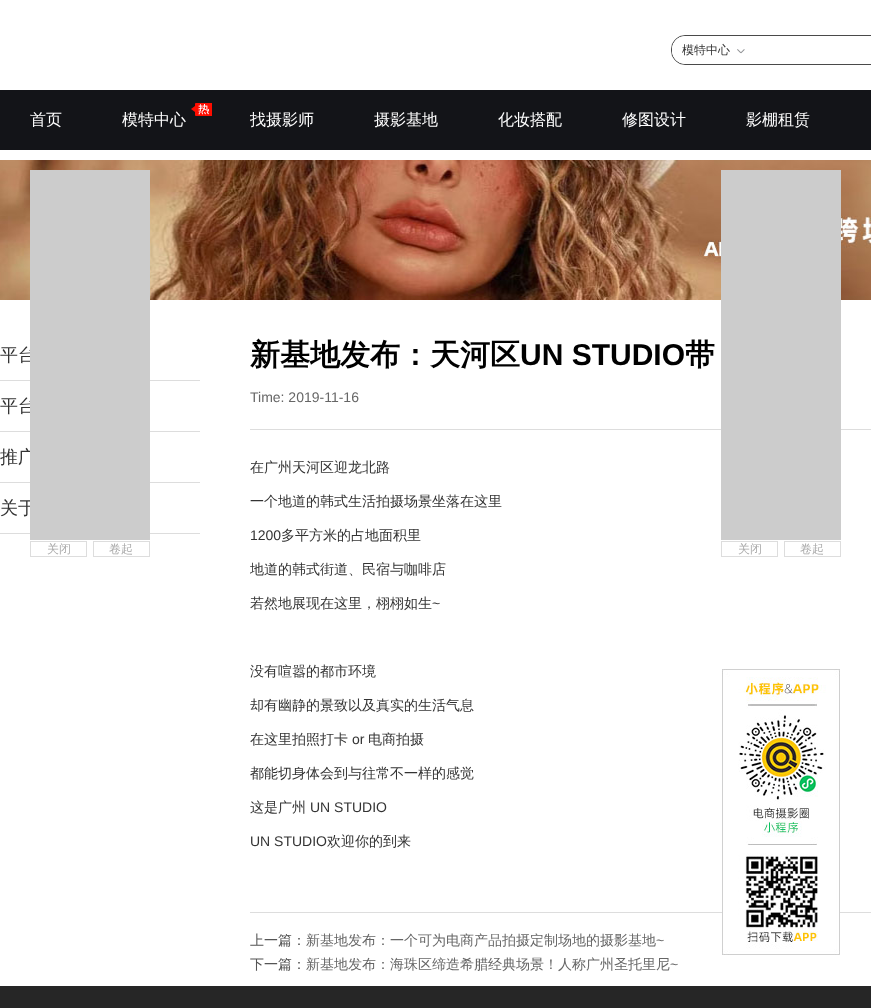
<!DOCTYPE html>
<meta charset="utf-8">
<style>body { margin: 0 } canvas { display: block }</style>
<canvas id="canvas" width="871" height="1008"></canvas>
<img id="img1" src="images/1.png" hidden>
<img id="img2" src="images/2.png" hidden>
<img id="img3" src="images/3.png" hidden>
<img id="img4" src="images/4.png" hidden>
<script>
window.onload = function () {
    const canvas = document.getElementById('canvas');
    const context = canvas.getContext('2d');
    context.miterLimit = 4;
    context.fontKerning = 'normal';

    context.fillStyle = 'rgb(255, 255, 255)';
    context.fillRect(0, 0, 871, 1008);
    context.beginPath();
    context.roundRect(671.5, 35.5, 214, 29, 13.5);
    context.strokeStyle = 'rgb(74, 74, 74)';
    context.stroke();
    context.beginPath();
    context.roundRect(672, 36, 73, 28, [14, 0, 0, 14]);
    context.fill();
    context.beginPath();
    context.roundRect(672, 38, 58, 24, 12);
    context.fill();
    context.drawImage(document.getElementById('img1'), 737, 49, 8, 5);
    context.fillStyle = 'rgb(19, 20, 24)';
    context.fillRect(0, 90, 871, 60);
    context.drawImage(document.getElementById('img2'), 191, 103, 21, 13);
    context.drawImage(document.getElementById('img3'), 0, 160, 871, 140);
    context.fillStyle = 'rgb(221, 221, 221)';
    context.fillRect(0, 380, 200, 1);
    context.fillRect(0, 431, 200, 1);
    context.fillRect(0, 482, 200, 1);
    context.fillRect(0, 533, 200, 1);
    context.fillRect(250, 429, 621, 1);
    context.fillRect(250, 912, 621, 1);
    context.strokeStyle = 'rgb(221, 221, 221)';
    context.strokeRect(30.5, 541.5, 56, 15);
    context.strokeRect(93.5, 541.5, 56, 15);
    context.fillStyle = 'rgb(204, 204, 204)';
    context.fillRect(721, 170, 120, 370);
    context.strokeRect(721.5, 541.5, 56, 15);
    context.strokeRect(784.5, 541.5, 56, 15);
    context.drawImage(document.getElementById('img4'), 722, 669, 118, 286);
    context.fillStyle = 'rgb(38, 38, 38)';
    context.fillRect(0, 986, 871, 22);
    context.font = '500 12px WenQuanYi Zen Hei';
    context.fillStyle = 'rgb(51, 51, 51)';
    context.fillText('模特中心', 682, 54);
    context.font = '500 16px WenQuanYi Zen Hei';
    context.fillStyle = 'rgb(255, 255, 255)';
    context.fillText('首页', 30, 125);
    context.fillText('模特中心', 122, 125);
    context.fillText('找摄影师', 250, 125);
    context.fillText('摄影基地', 374, 125);
    context.fillText('化妆搭配', 498, 125);
    context.fillText('修图设计', 622, 125);
    context.fillText('影棚租赁', 746, 125);
    context.font = '500 18px WenQuanYi Zen Hei';
    context.fillStyle = 'rgb(51, 51, 51)';
    context.fillText('平台', 0, 361);
    context.fillText('平台', 0, 412);
    context.fillText('推广', 0, 463);
    context.fillText('关于', 0, 514);
    context.font = 'bold 30px WenQuanYi Zen Hei';
    context.fillStyle = 'rgb(0, 0, 0)';
    context.fillText('新基地发布：天河区', 250, 365);
    context.font = 'bold 30px Liberation Sans';
    context.fillText('UN STUDIO', 520, 365);
    context.font = 'bold 30px WenQuanYi Zen Hei';
    context.fillText('带', 685, 365);
    context.font = '14px Liberation Sans';
    context.fillStyle = 'rgb(102, 102, 102)';
    context.fillText('Time: 2019-11-16', 250, 402);
    context.font = '500 14px WenQuanYi Zen Hei';
    context.fillStyle = 'rgb(51, 51, 51)';
    context.fillText('在广州天河区迎龙北路', 250, 472);
    context.fillText('一个地道的韩式生活拍摄场景坐落在这里', 250, 506);
    context.font = '14px Liberation Sans';
    context.fillText('1200', 250, 540);
    context.font = '500 14px WenQuanYi Zen Hei';
    context.fillText('多平方米的占地面积里', 281, 540);
    context.fillText('地道的韩式街道、民宿与咖啡店', 250, 574);
    context.fillText('若然地展现在这里，栩栩如生', 250, 608);
    context.font = '14px Liberation Sans';
    context.fillText('~', 432, 608);
    context.font = '500 14px WenQuanYi Zen Hei';
    context.fillText('没有喧嚣的都市环境', 250, 676);
    context.fillText('却有幽静的景致以及真实的生活气息', 250, 710);
    context.fillText('在这里拍照打卡', 250, 744);
    context.font = '14px Liberation Sans';
    context.fillText('or', 352, 744);
    context.font = '500 14px WenQuanYi Zen Hei';
    context.fillText('电商拍摄', 368, 744);
    context.fillText('都能切身体会到与往常不一样的感觉', 250, 778);
    context.fillText('这是广州', 250, 812);
    context.font = '14px Liberation Sans';
    context.fillText('UN STUDIO', 310, 812);
    context.fillText('UN STUDIO', 250, 846);
    context.font = '500 14px WenQuanYi Zen Hei';
    context.fillText('欢迎你的到来', 327, 846);
    context.fillStyle = 'rgb(85, 85, 85)';
    context.fillText('上一篇：', 250, 945);
    context.fillStyle = 'rgb(102, 102, 102)';
    context.fillText('新基地发布：一个可为电商产品拍摄定制场地的摄影基地', 306, 945);
    context.font = '14px Liberation Sans';
    context.fillText('~', 656, 945);
    context.font = '500 14px WenQuanYi Zen Hei';
    context.fillStyle = 'rgb(85, 85, 85)';
    context.fillText('下一篇：', 250, 969);
    context.fillStyle = 'rgb(102, 102, 102)';
    context.fillText('新基地发布：海珠区缔造希腊经典场景！人称广州圣托里尼', 306, 969);
    context.font = '14px Liberation Sans';
    context.fillText('~', 670, 969);
    context.fillStyle = 'rgb(204, 204, 204)';
    context.fillRect(30, 170, 120, 370);
    context.font = '500 12px WenQuanYi Zen Hei';
    context.fillStyle = 'rgb(170, 170, 170)';
    context.fillText('关闭', 47, 553);
    context.fillText('卷起', 109, 553);
    context.fillText('关闭', 738, 553);
    context.fillText('卷起', 800, 553);
};
</script>
